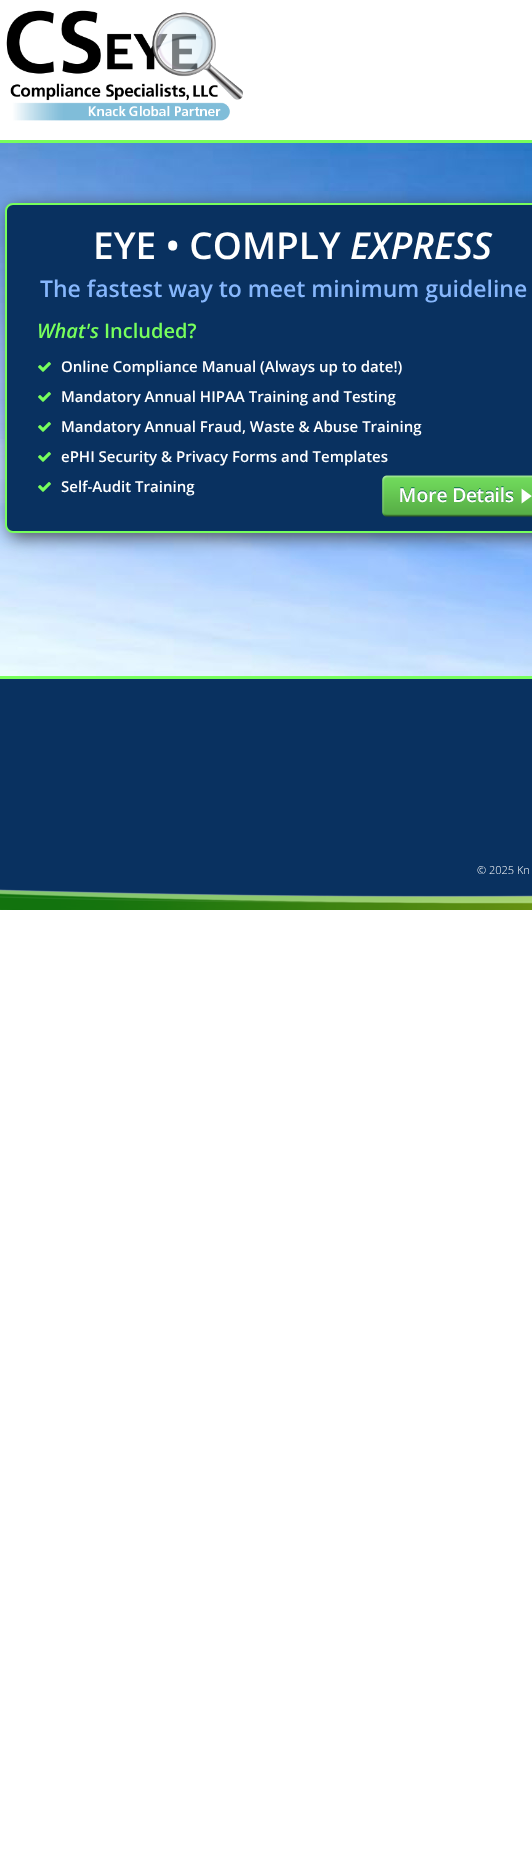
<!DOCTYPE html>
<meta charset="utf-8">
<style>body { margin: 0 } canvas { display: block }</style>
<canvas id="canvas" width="532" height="1874"></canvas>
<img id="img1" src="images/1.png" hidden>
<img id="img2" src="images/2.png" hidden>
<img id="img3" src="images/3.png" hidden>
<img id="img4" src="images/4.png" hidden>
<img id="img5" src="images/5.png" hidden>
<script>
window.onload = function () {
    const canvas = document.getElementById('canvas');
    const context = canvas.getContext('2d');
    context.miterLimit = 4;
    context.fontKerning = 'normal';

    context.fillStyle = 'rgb(255, 255, 255)';
    context.fillRect(0, 0, 532, 1874);
    context.drawImage(document.getElementById('img1'), 6, 10, 237, 111);
    context.fillStyle = 'rgb(119, 255, 92)';
    context.fillRect(0, 140, 532, 3);
    context.fillRect(0, 676, 532, 3);
    context.drawImage(document.getElementById('img2'), 0, 143, 532, 533);
    context.fillStyle = 'rgba(50, 50, 50, 0.81)';
    context.filter = 'blur(8.5px)';
    context.beginPath();
    context.roundRect(9, 207, 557, 330, 8);
    context.fill();
    context.filter = 'none';
    context.fillStyle = 'rgb(9, 49, 96)';
    context.beginPath();
    context.roundRect(6, 204, 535, 328, 7);
    context.fill();
    context.strokeStyle = 'rgb(119, 255, 92)';
    context.lineWidth = 2;
    context.stroke();
    context.drawImage(document.getElementById('img3'), 38, 362, 13, 10);
    context.drawImage(document.getElementById('img3'), 38, 392, 13, 10);
    context.drawImage(document.getElementById('img3'), 38, 422, 13, 10);
    context.drawImage(document.getElementById('img3'), 38, 452, 13, 10);
    context.drawImage(document.getElementById('img3'), 38, 482, 13, 10);
    context.drawImage(document.getElementById('img4'), 382, 475, 150, 42);
    context.drawImage(document.getElementById('img5'), 0, 679, 532, 231);
    context.font = '600 37px Open Sans';
    context.fillStyle = 'rgb(255, 255, 255)';
    context.fillText('EYE • COMPLY', 93, 259);
    context.font = 'italic 600 37px Open Sans';
    context.fillText('EXPRESS', 350, 259);
    context.font = '600 23px Open Sans';
    context.fillStyle = 'rgb(135, 183, 252)';
    context.fillText('The fastest way to meet minimum guideline', 40, 297);
    context.font = 'italic 600 20px Open Sans';
    context.fillStyle = 'rgb(119, 255, 92)';
    context.fillText('What\'s', 37, 338);
    context.font = '600 20px Open Sans';
    context.fillText('Included?', 104, 338);
    context.font = '600 15px Open Sans';
    context.fillStyle = 'rgb(255, 255, 255)';
    context.fillText('Online Compliance Manual (Always up to date!)', 61, 372);
    context.fillText('Mandatory Annual HIPAA Training and Testing', 61, 402);
    context.fillText('Mandatory Annual Fraud, Waste & Abuse Training', 61, 432);
    context.fillText('ePHI Security & Privacy Forms and Templates', 61, 462);
    context.fillText('Self-Audit Training', 61, 492);
    context.font = '300 11px Open Sans';
    context.fillText('© 2025 Kn', 477, 874);
};
</script>
